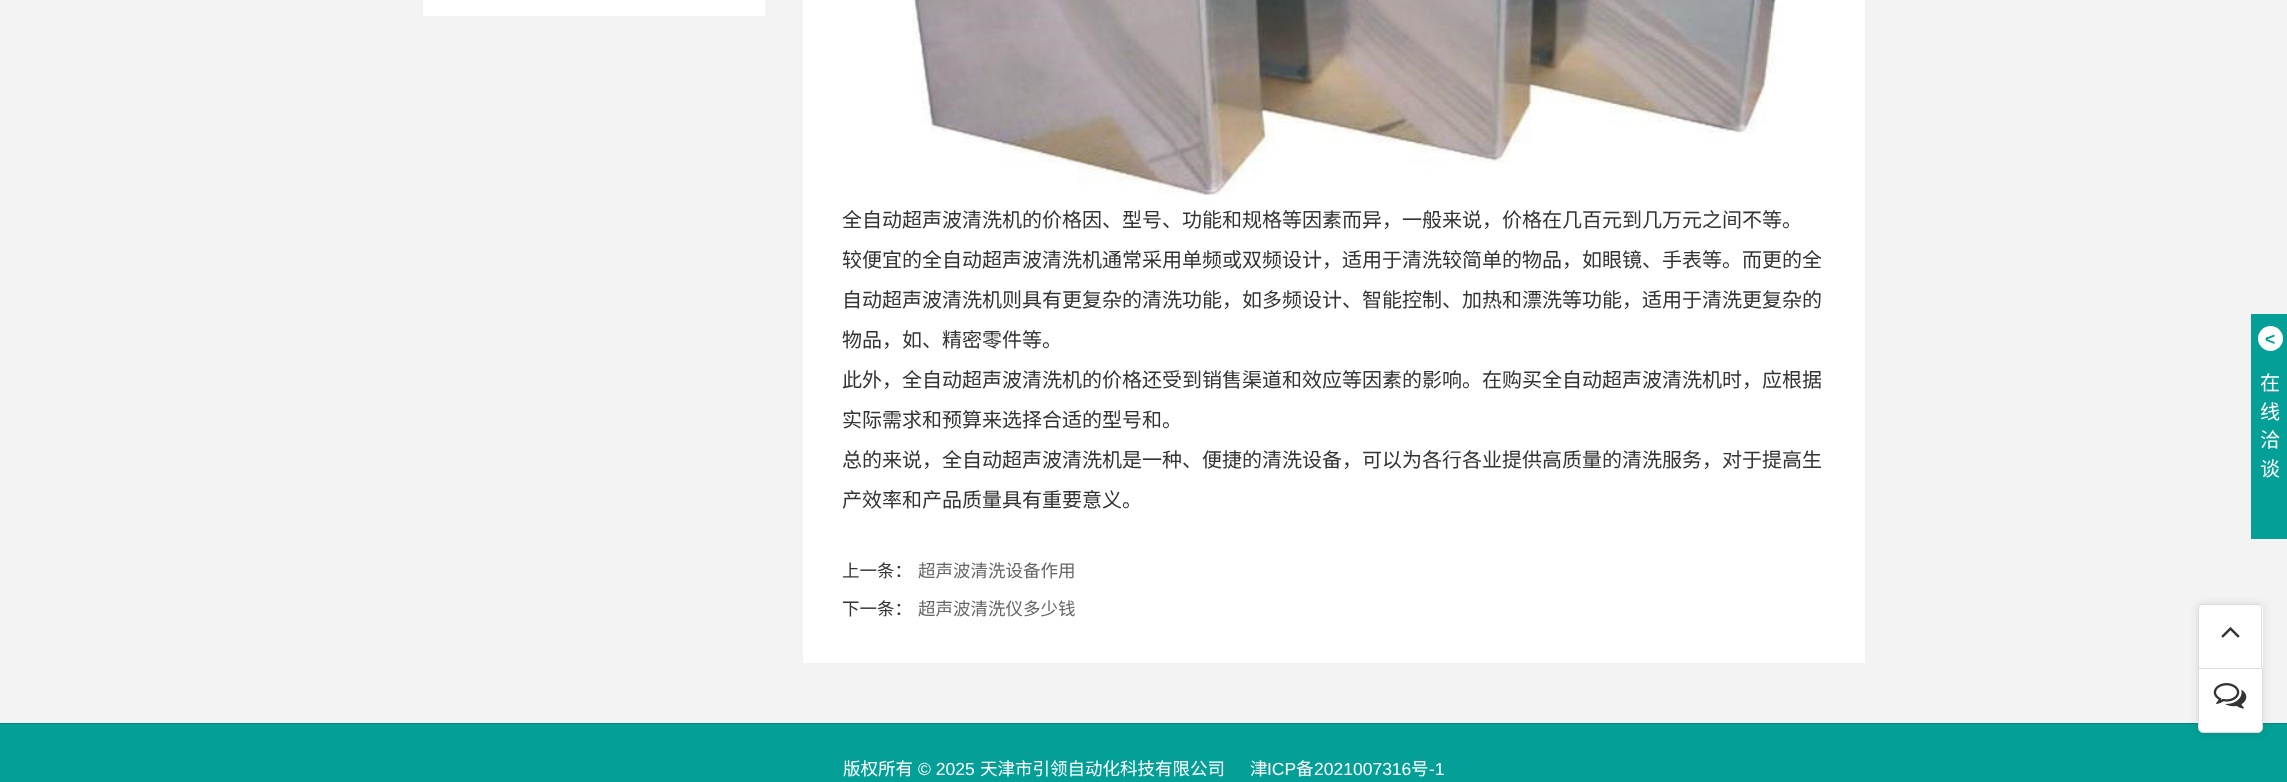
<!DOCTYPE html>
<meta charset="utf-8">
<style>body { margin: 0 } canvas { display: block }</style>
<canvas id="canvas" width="2287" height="782"></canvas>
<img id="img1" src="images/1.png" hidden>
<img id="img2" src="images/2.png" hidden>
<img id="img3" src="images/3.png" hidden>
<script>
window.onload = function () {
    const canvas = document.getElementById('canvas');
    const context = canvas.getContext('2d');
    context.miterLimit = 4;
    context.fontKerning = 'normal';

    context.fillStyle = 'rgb(243, 243, 243)';
    context.fillRect(0, 0, 2287, 782);
    context.fillStyle = 'rgb(255, 255, 255)';
    context.fillRect(423, 0, 342, 16);
    context.fillRect(803, 0, 1062, 663);
    context.drawImage(document.getElementById('img1'), 912, 0, 873, 195);
    context.fillStyle = 'rgb(4, 159, 151)';
    context.fillRect(2251, 314, 36, 225);
    context.fillStyle = 'rgb(255, 255, 255)';
    context.beginPath();
    context.arc(2270.5, 338.5, 12.5, 0, 2 * Math.PI);
    context.fill();
    context.fillStyle = 'rgb(4, 159, 151)';
    context.fillRect(0, 724, 2287, 58);
    context.fillStyle = 'rgb(3, 134, 127)';
    context.fillRect(0, 723, 2287, 1);
    context.fillStyle = 'rgba(0, 0, 0, 0.1)';
    context.filter = 'blur(4px)';
    context.beginPath();
    context.rect(2198, 604, 65, 129);
    context.fill();
    context.filter = 'none';
    context.fillStyle = 'rgb(255, 255, 255)';
    context.beginPath();
    context.roundRect(2198, 604, 65, 64, [5, 5, 0, 0]);
    context.fill();
    context.fillStyle = 'rgb(220, 220, 220)';
    context.beginPath();
    context.moveTo(2202, 604);
    context.lineTo(2258, 604);
    context.bezierCurveTo(2260, 604, 2262, 606, 2262, 609);
    context.lineTo(2262, 668);
    context.lineTo(2198, 668);
    context.lineTo(2198, 609);
    context.bezierCurveTo(2198, 606, 2200, 604, 2202, 604);
    context.closePath();
    context.moveTo(2202, 605);
    context.lineTo(2258, 605);
    context.bezierCurveTo(2260, 605, 2261, 607, 2261, 609);
    context.lineTo(2261, 668);
    context.lineTo(2199, 668);
    context.lineTo(2199, 609);
    context.bezierCurveTo(2199, 607, 2200, 605, 2202, 605);
    context.closePath();
    context.fill('evenodd');
    context.drawImage(document.getElementById('img2'), 2221, 627, 19, 11);
    context.fillStyle = 'rgb(255, 255, 255)';
    context.beginPath();
    context.roundRect(2198.5, 668.5, 64, 64, [0, 0, 4.5, 4.5]);
    context.fill();
    context.strokeStyle = 'rgb(220, 220, 220)';
    context.stroke();
    context.drawImage(document.getElementById('img3'), 2213, 683, 34, 26);
    context.font = '20px Noto Sans CJK SC';
    context.fillStyle = 'rgb(51, 51, 51)';
    context.fillText('全自动超声波清洗机的价格因、型号、功能和规格等因素而异，一般来说，价格在几百元到几万元之间不等。', 842, 227);
    context.fillText('较便宜的全自动超声波清洗机通常采用单频或双频设计，适用于清洗较简单的物品，如眼镜、手表等。而更的全', 842, 267);
    context.fillText('自动超声波清洗机则具有更复杂的清洗功能，如多频设计、智能控制、加热和漂洗等功能，适用于清洗更复杂的', 842, 307);
    context.fillText('物品，如、精密零件等。', 842, 347);
    context.fillText('此外，全自动超声波清洗机的价格还受到销售渠道和效应等因素的影响。在购买全自动超声波清洗机时，应根据', 842, 387);
    context.fillText('实际需求和预算来选择合适的型号和。', 842, 427);
    context.fillText('总的来说，全自动超声波清洗机是一种、便捷的清洗设备，可以为各行各业提供高质量的清洗服务，对于提高生', 842, 467);
    context.fillText('产效率和产品质量具有重要意义。', 842, 507);
    context.font = '17.5px Noto Sans CJK SC';
    context.fillText('上一条：', 842, 577);
    context.fillStyle = 'rgb(102, 102, 102)';
    context.fillText('超声波清洗设备作用', 918, 577);
    context.fillStyle = 'rgb(51, 51, 51)';
    context.fillText('下一条：', 842, 615);
    context.fillStyle = 'rgb(102, 102, 102)';
    context.fillText('超声波清洗仪多少钱', 918, 615);
    context.font = 'bold 17.5px Liberation Sans';
    context.fillStyle = 'rgb(4, 159, 151)';
    context.fillText('<', 2265, 345);
    context.font = '20px Noto Sans CJK SC';
    context.fillStyle = 'rgb(255, 255, 255)';
    context.fillText('在', 2260, 390);
    context.fillText('线', 2260, 419);
    context.fillText('洽', 2260, 447);
    context.fillText('谈', 2260, 476);
    context.font = '17.5px Noto Sans CJK SC';
    context.fillText('版权所有', 843, 775);
    context.font = '17.5px Liberation Sans';
    context.fillText('© 2025', 918, 775);
    context.font = '17.5px Noto Sans CJK SC';
    context.fillText('天津市引领自动化科技有限公司', 980, 775);
    context.fillText('津', 1250, 775);
    context.font = '17.5px Liberation Sans';
    context.fillText('ICP', 1267, 775);
    context.font = '17.5px Noto Sans CJK SC';
    context.fillText('备', 1296, 775);
    context.font = '17.5px Liberation Sans';
    context.fillText('2021007316', 1314, 775);
    context.font = '17.5px Noto Sans CJK SC';
    context.fillText('号', 1411, 775);
    context.font = '17.5px Liberation Sans';
    context.fillText('-1', 1429, 775);
};
</script>
